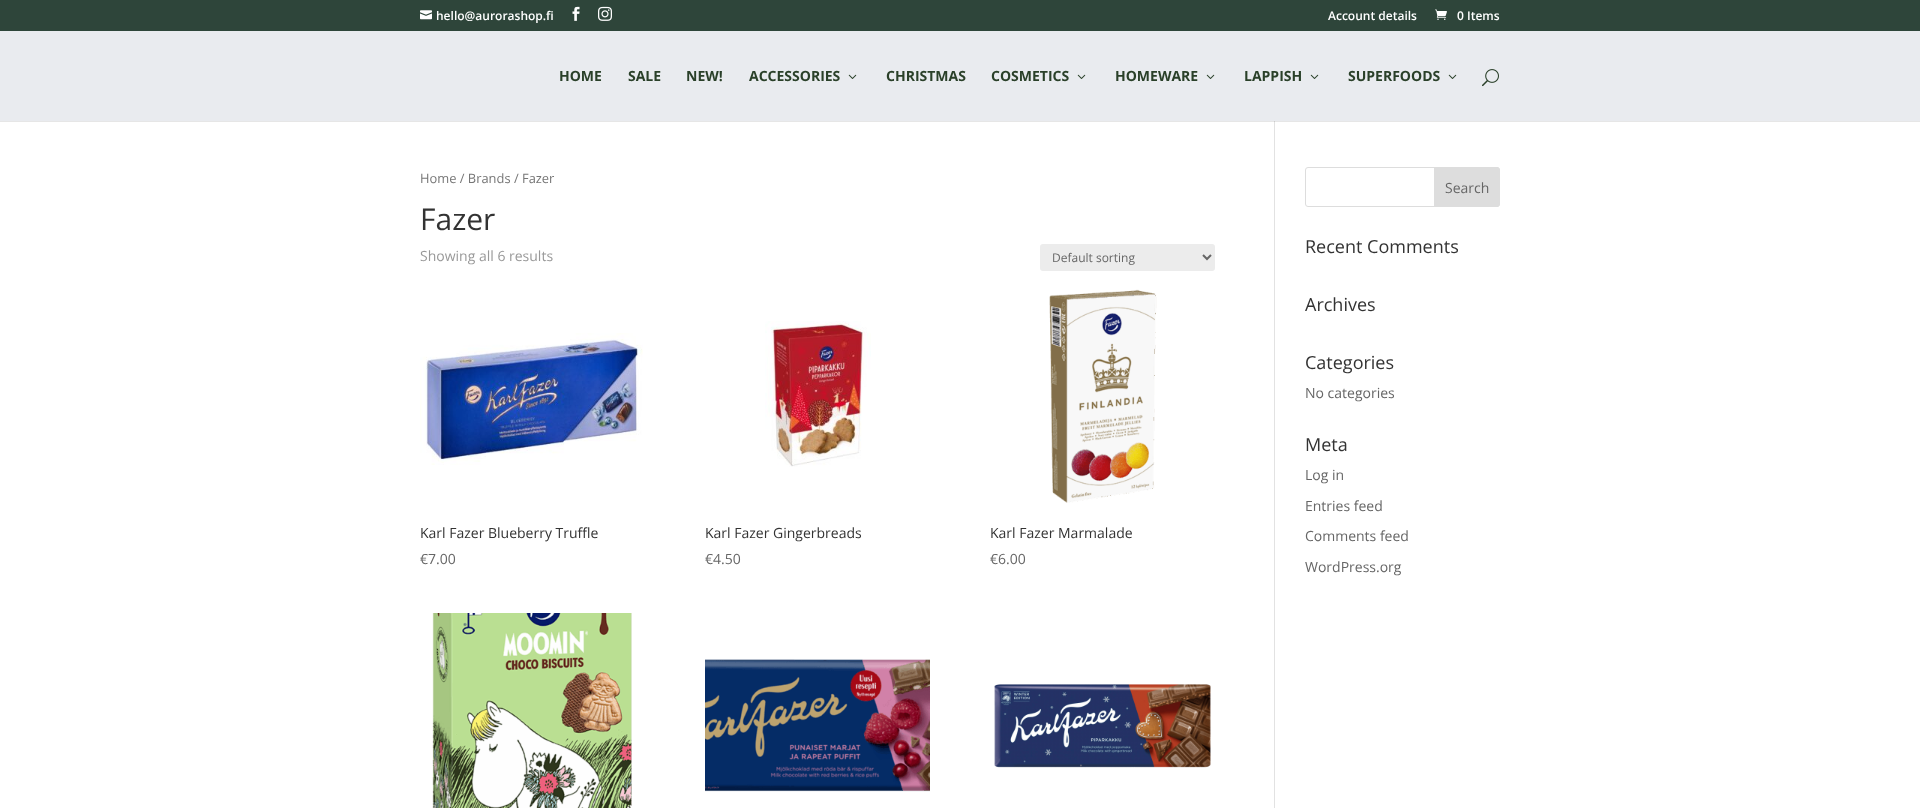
<!DOCTYPE html>
<meta charset="utf-8">
<style>body { margin: 0 } canvas { display: block }</style>
<canvas id="canvas" width="1920" height="808"></canvas>
<img id="img1" src="images/1.png" hidden>
<img id="img2" src="images/2.png" hidden>
<img id="img3" src="images/3.png" hidden>
<img id="img4" src="images/4.png" hidden>
<img id="img5" src="images/5.png" hidden>
<img id="img6" src="images/6.png" hidden>
<img id="img7" src="images/7.png" hidden>
<img id="img8" src="images/8.png" hidden>
<img id="img9" src="images/9.png" hidden>
<img id="img10" src="images/10.png" hidden>
<img id="img11" src="images/11.png" hidden>
<img id="img12" src="images/12.png" hidden>
<script>
window.onload = function () {
    const canvas = document.getElementById('canvas');
    const context = canvas.getContext('2d');
    context.miterLimit = 4;
    context.fontKerning = 'normal';

    context.fillStyle = 'rgb(255, 255, 255)';
    context.fillRect(0, 0, 1920, 808);
    context.fillStyle = 'rgb(46, 69, 58)';
    context.fillRect(0, 0, 1920, 31);
    context.drawImage(document.getElementById('img1'), 420, 10, 12, 10);
    context.drawImage(document.getElementById('img2'), 572, 6, 8, 15);
    context.drawImage(document.getElementById('img3'), 598, 6, 14, 15);
    context.drawImage(document.getElementById('img4'), 1435, 9, 12, 11);
    context.fillStyle = 'rgb(233, 235, 239)';
    context.fillRect(0, 31, 1920, 90);
    context.drawImage(document.getElementById('img5'), 848, 74, 9, 5);
    context.drawImage(document.getElementById('img5'), 1077, 74, 9, 5);
    context.drawImage(document.getElementById('img5'), 1206, 74, 9, 5);
    context.drawImage(document.getElementById('img5'), 1310, 74, 9, 5);
    context.drawImage(document.getElementById('img5'), 1448, 74, 9, 5);
    context.drawImage(document.getElementById('img6'), 1482, 69, 17, 18);
    context.fillStyle = 'rgb(230, 230, 230)';
    context.fillRect(0, 121, 1920, 1);
    context.fillStyle = 'rgb(226, 226, 226)';
    context.fillRect(1274, 122, 1, 686);
    context.fillStyle = 'rgb(203, 203, 203)';
    context.fillRect(1274, 121, 1, 1);
    context.fillStyle = 'rgb(236, 236, 236)';
    context.beginPath();
    context.roundRect(1040, 244, 175, 27, 3);
    context.fill();
    context.beginPath();
    context.moveTo(1203, 255);
    context.lineTo(1207, 259);
    context.lineTo(1211, 255);
    context.strokeStyle = 'rgb(102, 102, 102)';
    context.lineWidth = 2;
    context.stroke();
    context.drawImage(document.getElementById('img7'), 420, 333, 223, 132);
    context.drawImage(document.getElementById('img8'), 765, 321, 106, 146);
    context.drawImage(document.getElementById('img9'), 1049, 289, 108, 214);
    context.drawImage(document.getElementById('img10'), 432, 613, 200, 195);
    context.drawImage(document.getElementById('img11'), 705, 659, 225, 133);
    context.drawImage(document.getElementById('img12'), 994, 684, 217, 84);
    context.beginPath();
    context.roundRect(1305.5, 167.5, 194, 39, 2.5);
    context.strokeStyle = 'rgb(221, 221, 221)';
    context.lineWidth = 1;
    context.stroke();
    context.fillStyle = 'rgb(221, 221, 221)';
    context.beginPath();
    context.roundRect(1434.5, 167.5, 65, 39, [0, 2.5, 2.5, 0]);
    context.fill();
    context.stroke();
    context.font = '600 12px Open Sans';
    context.fillStyle = 'rgb(255, 255, 255)';
    context.fillText('hello@aurorashop.fi', 436, 20);
    context.fillText('Account details', 1328, 20);
    context.fillText('0 Items', 1457, 20);
    context.font = 'bold 14px Open Sans';
    context.fillStyle = 'rgb(42, 64, 41)';
    context.fillText('HOME', 559, 81);
    context.fillText('SALE', 628, 81);
    context.fillText('NEW!', 686, 81);
    context.fillText('ACCESSORIES', 749, 81);
    context.fillText('CHRISTMAS', 886, 81);
    context.fillText('COSMETICS', 991, 81);
    context.fillText('HOMEWARE', 1115, 81);
    context.fillText('LAPPISH', 1244, 81);
    context.fillText('SUPERFOODS', 1348, 81);
    context.font = '12.9px Open Sans';
    context.fillStyle = 'rgb(118, 118, 118)';
    context.fillText('Home / Brands / Fazer', 420, 183);
    context.font = '30px Open Sans';
    context.fillStyle = 'rgb(51, 51, 51)';
    context.fillText('Fazer', 420, 230);
    context.font = '14px Open Sans';
    context.fillStyle = 'rgb(153, 153, 153)';
    context.fillText('Showing all 6 results', 420, 261);
    context.font = '12px Open Sans';
    context.fillStyle = 'rgb(102, 102, 102)';
    context.fillText('Default sorting', 1052, 262);
    context.font = '14px Open Sans';
    context.fillStyle = 'rgb(51, 51, 51)';
    context.fillText('Karl Fazer Blueberry Truffle', 420, 538);
    context.fillStyle = 'rgb(102, 102, 102)';
    context.fillText('€7.00', 420, 564);
    context.fillStyle = 'rgb(51, 51, 51)';
    context.fillText('Karl Fazer Gingerbreads', 705, 538);
    context.fillStyle = 'rgb(102, 102, 102)';
    context.fillText('€4.50', 705, 564);
    context.fillStyle = 'rgb(51, 51, 51)';
    context.fillText('Karl Fazer Marmalade', 990, 538);
    context.fillStyle = 'rgb(102, 102, 102)';
    context.fillText('€6.00', 990, 564);
    context.fillText('Search', 1445, 193);
    context.font = '18px Open Sans';
    context.fillStyle = 'rgb(51, 51, 51)';
    context.fillText('Recent Comments', 1305, 253);
    context.fillText('Archives', 1305, 311);
    context.fillText('Categories', 1305, 369);
    context.font = '14px Open Sans';
    context.fillStyle = 'rgb(102, 102, 102)';
    context.fillText('No categories', 1305, 398);
    context.font = '18px Open Sans';
    context.fillStyle = 'rgb(51, 51, 51)';
    context.fillText('Meta', 1305, 451);
    context.font = '14px Open Sans';
    context.fillStyle = 'rgb(102, 102, 102)';
    context.fillText('Log in', 1305, 480);
    context.fillText('Entries feed', 1305, 511);
    context.fillText('Comments feed', 1305, 541);
    context.fillText('WordPress.org', 1305, 572);
};
</script>
